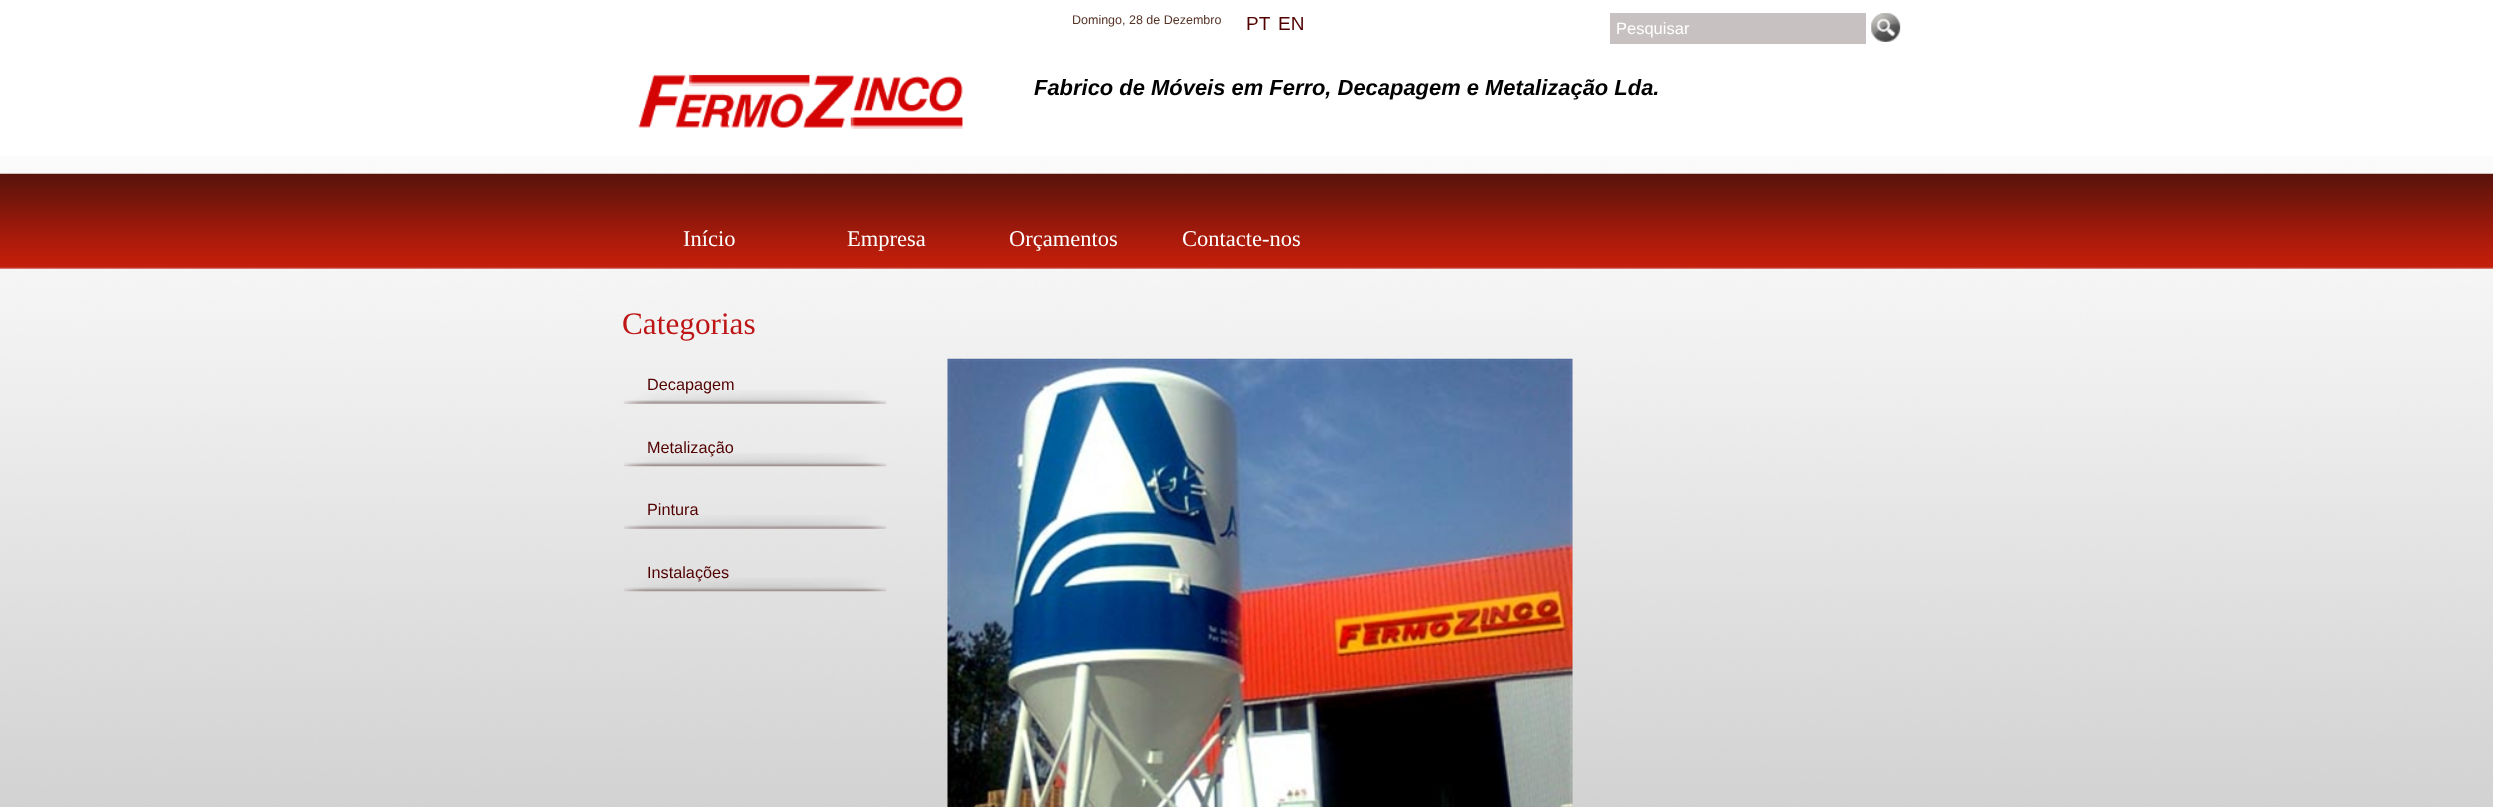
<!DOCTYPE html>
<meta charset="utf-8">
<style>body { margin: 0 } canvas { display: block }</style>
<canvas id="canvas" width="2493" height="807"></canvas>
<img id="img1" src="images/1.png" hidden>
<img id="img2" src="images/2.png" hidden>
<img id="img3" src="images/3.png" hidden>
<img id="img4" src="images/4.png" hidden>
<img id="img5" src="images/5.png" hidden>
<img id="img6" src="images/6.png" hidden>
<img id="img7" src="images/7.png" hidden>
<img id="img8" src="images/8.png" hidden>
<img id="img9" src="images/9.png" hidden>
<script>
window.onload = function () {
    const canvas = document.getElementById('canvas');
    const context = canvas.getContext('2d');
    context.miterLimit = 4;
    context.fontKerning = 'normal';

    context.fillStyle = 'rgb(255, 255, 255)';
    context.fillRect(0, 0, 2493, 807);
    context.drawImage(document.getElementById('img1'), 0, 156, 2493, 651);
    context.drawImage(document.getElementById('img2'), 0, 173, 2493, 96);
    context.fillStyle = 'rgb(200, 193, 193)';
    context.fillRect(1610, 13, 256, 31);
    context.drawImage(document.getElementById('img3'), 1871, 13, 30, 29);
    context.drawImage(document.getElementById('img4'), 638, 74, 325, 55);
    context.drawImage(document.getElementById('img5'), 623, 390, 264, 14);
    context.drawImage(document.getElementById('img6'), 623, 453, 264, 14);
    context.drawImage(document.getElementById('img7'), 624, 515, 263, 14);
    context.drawImage(document.getElementById('img8'), 623, 578, 264, 14);
    context.drawImage(document.getElementById('img9'), 947, 358, 626, 449);
    context.font = '12.5px Liberation Sans';
    context.fillStyle = 'rgb(85, 51, 39)';
    context.fillText('Domingo, 28 de Dezembro', 1072, 24);
    context.font = '19px Liberation Sans';
    context.fillStyle = 'rgb(81, 0, 0)';
    context.fillText('PT', 1246, 30);
    context.fillText('EN', 1278, 30);
    context.font = '16.5px Liberation Sans';
    context.fillStyle = 'rgb(255, 255, 255)';
    context.fillText('Pesquisar', 1616, 34);
    context.font = 'italic bold 21.95px Liberation Sans';
    context.fillStyle = 'rgb(0, 0, 0)';
    context.fillText('Fabrico de Móveis em Ferro, Decapagem e Metalização Lda.', 1034, 95);
    context.font = '22.5px Liberation Serif';
    context.fillStyle = 'rgb(255, 255, 255)';
    context.fillText('Início', 683, 246);
    context.fillText('Empresa', 847, 246);
    context.fillText('Orçamentos', 1009, 246);
    context.fillText('Contacte-nos', 1182, 246);
    context.font = '31.25px Liberation Serif';
    context.fillStyle = 'rgb(190, 22, 22)';
    context.fillText('Categorias', 622, 334);
    context.font = '16.25px Liberation Sans';
    context.fillStyle = 'rgb(81, 0, 0)';
    context.fillText('Decapagem', 647, 390);
    context.fillText('Metalização', 647, 453);
    context.fillText('Pintura', 647, 515);
    context.fillText('Instalações', 647, 578);
};
</script>
